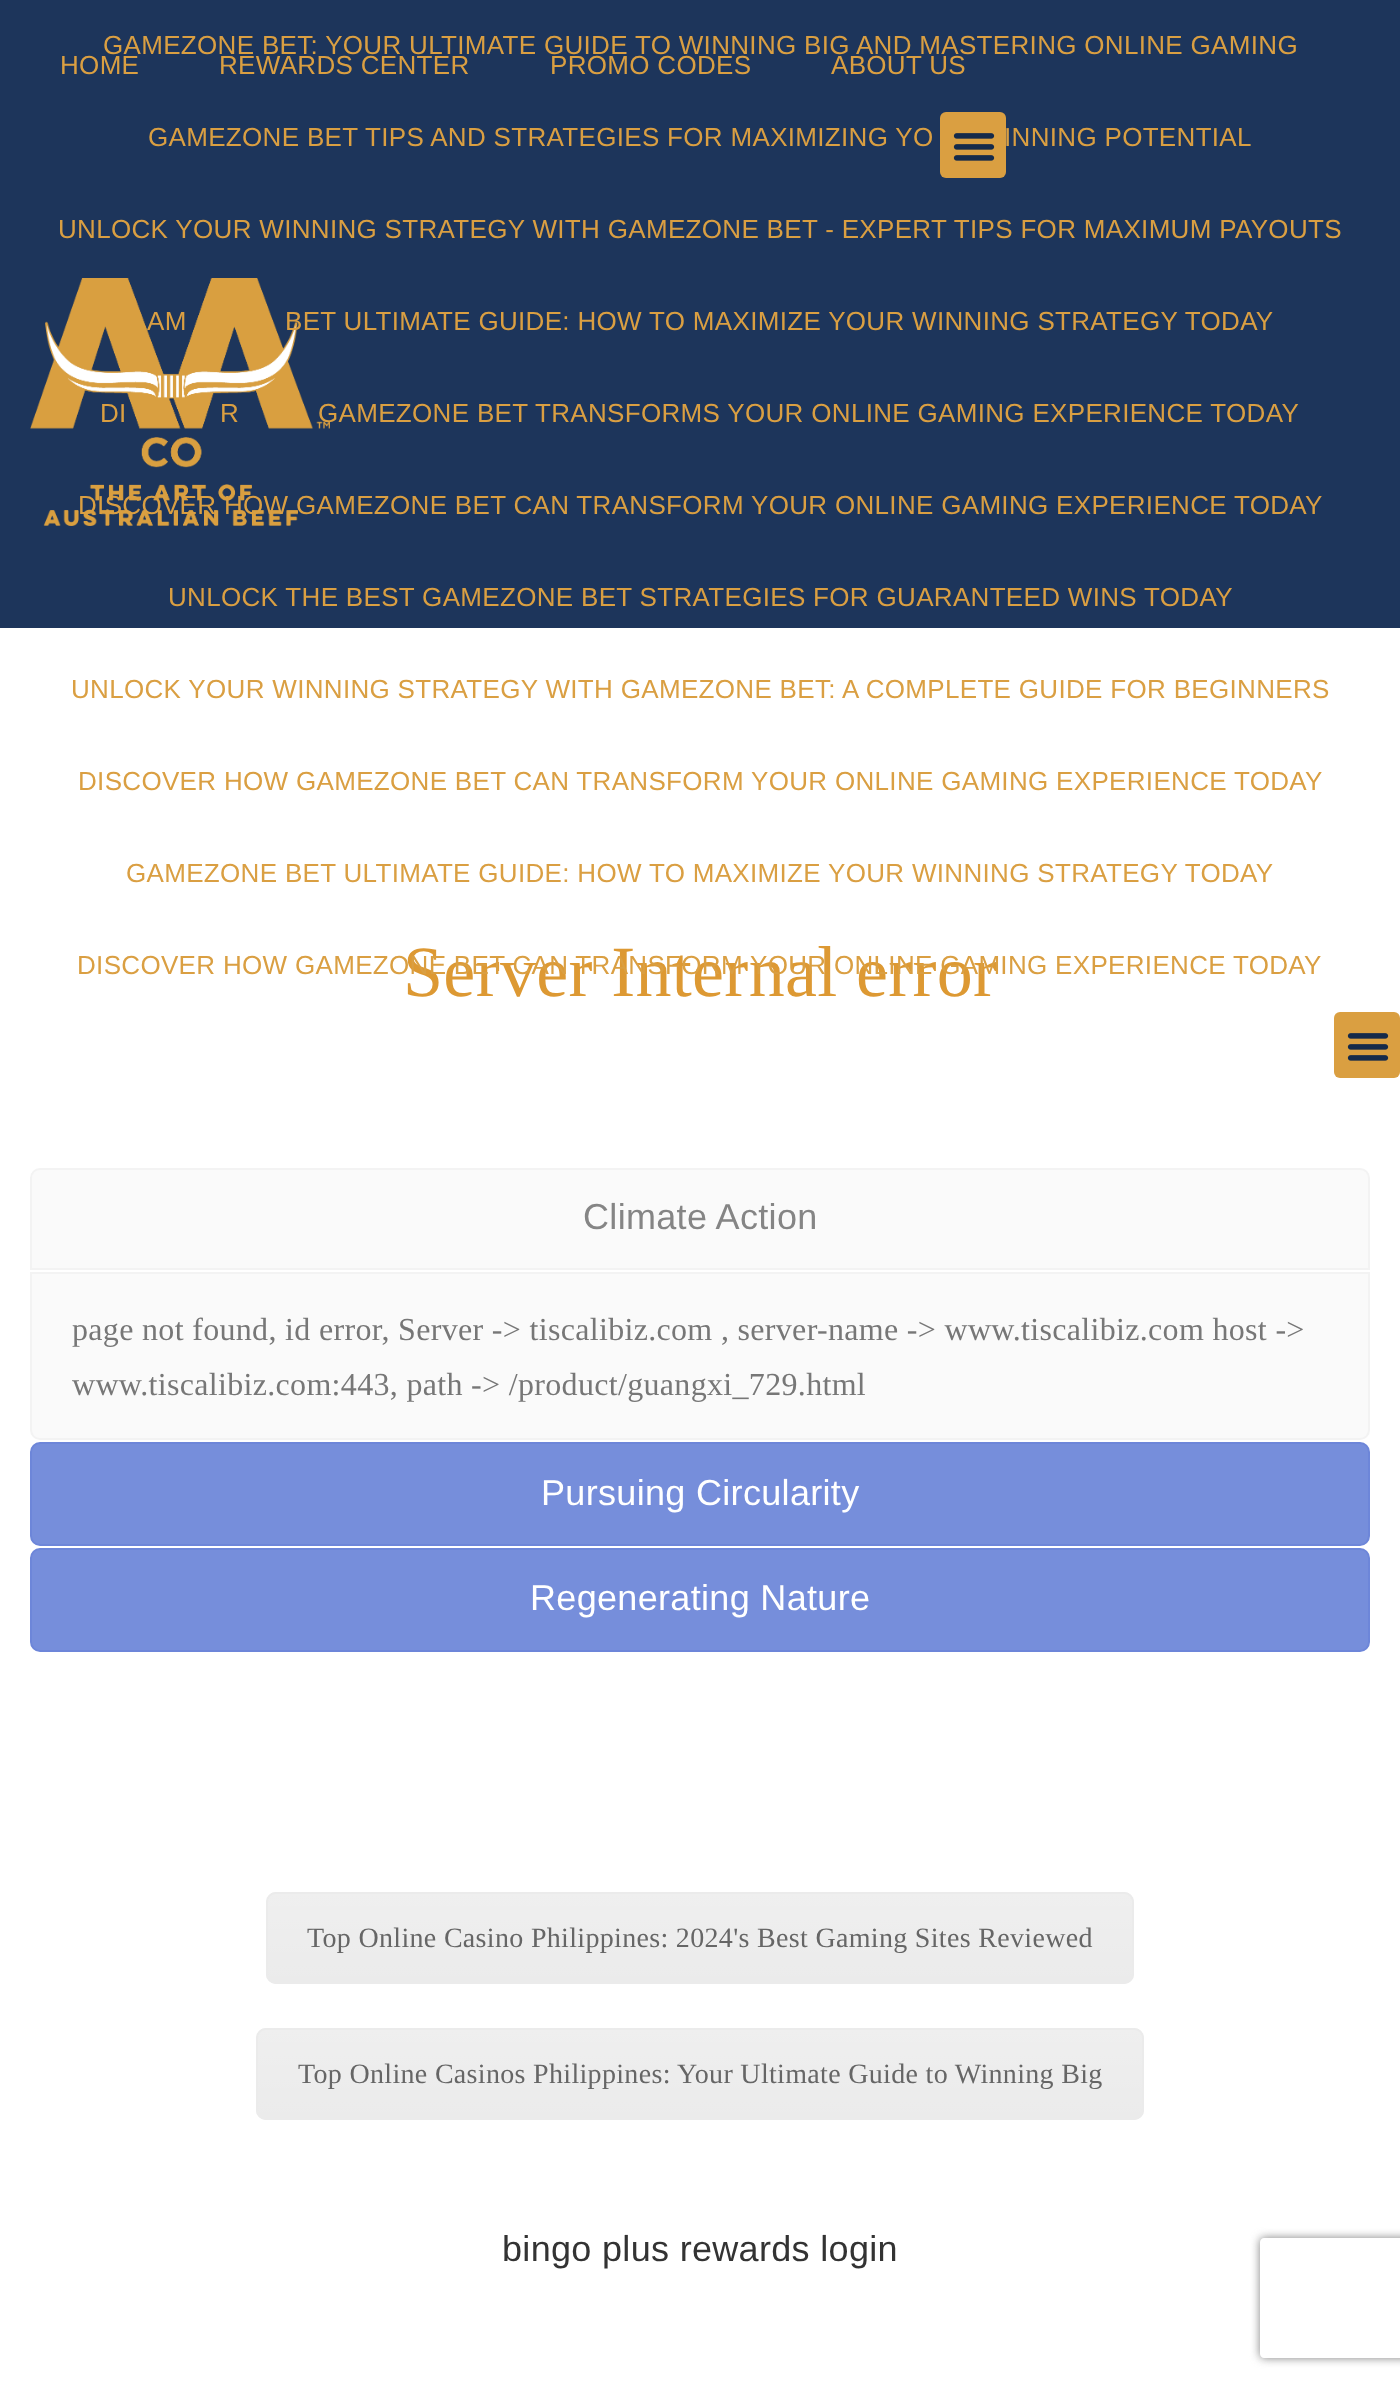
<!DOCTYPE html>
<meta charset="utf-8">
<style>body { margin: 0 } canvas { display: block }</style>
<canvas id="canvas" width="1400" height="2386"></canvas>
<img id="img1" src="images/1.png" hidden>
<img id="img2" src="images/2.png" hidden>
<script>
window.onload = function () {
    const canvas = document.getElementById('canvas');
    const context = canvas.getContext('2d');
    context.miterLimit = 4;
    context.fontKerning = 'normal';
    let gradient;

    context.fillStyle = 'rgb(255, 255, 255)';
    context.fillRect(0, 0, 1400, 2386);
    context.fillStyle = 'rgb(29, 53, 91)';
    context.fillRect(0, 0, 1400, 628);
    context.fillStyle = 'rgb(218, 159, 65)';
    context.beginPath();
    context.roundRect(1334, 1012, 66, 66, 6);
    context.fill();
    context.drawImage(document.getElementById('img1'), 1347, 1033, 42, 28);
    context.beginPath();
    context.roundRect(940, 112, 66, 66, 6);
    context.fill();
    context.drawImage(document.getElementById('img1'), 953, 133, 42, 28);
    context.drawImage(document.getElementById('img2'), 30, 278, 300, 248);
    context.fillStyle = 'rgb(250, 250, 250)';
    context.beginPath();
    context.roundRect(31, 1169, 1338, 100, [9, 9, 0, 0]);
    context.fill();
    context.strokeStyle = 'rgb(243, 243, 243)';
    context.lineWidth = 2;
    context.stroke();
    context.beginPath();
    context.roundRect(31, 1273, 1338, 166, [0, 0, 9, 9]);
    context.fill();
    context.stroke();
    context.fillStyle = 'rgb(118, 142, 219)';
    context.beginPath();
    context.roundRect(31, 1443, 1338, 102, 9);
    context.fill();
    context.strokeStyle = 'rgb(109, 134, 217)';
    context.stroke();
    context.beginPath();
    context.roundRect(31, 1549, 1338, 102, 9);
    context.fill();
    context.stroke();
    context.fillStyle = 'rgb(235, 235, 235)';
    context.beginPath();
    context.roundRect(266, 1892, 868, 92, 10);
    context.fill();
    context.save();
    context.beginPath();
    context.roundRect(266, 1892, 868, 92, 10);
    context.clip();
    gradient = context.createLinearGradient(700, 1894, 700, 1982);
    gradient.addColorStop(0, 'rgba(255, 255, 255, 0.2)');
    gradient.addColorStop(1, 'rgba(255, 255, 255, 0.01)');
    context.fillStyle = gradient;
    context.fillRect(266, 1894, 868, 83);
    context.restore();
    context.beginPath();
    context.roundRect(267, 1893, 866, 90, 9);
    context.strokeStyle = 'rgb(235, 235, 235)';
    context.stroke();
    context.beginPath();
    context.roundRect(256, 2028, 888, 92, 10);
    context.fill();
    context.save();
    context.beginPath();
    context.roundRect(256, 2028, 888, 92, 10);
    context.clip();
    gradient = context.createLinearGradient(700, 2030, 700, 2118);
    gradient.addColorStop(0, 'rgba(255, 255, 255, 0.2)');
    gradient.addColorStop(1, 'rgba(255, 255, 255, 0.01)');
    context.fillStyle = gradient;
    context.fillRect(256, 2030, 888, 83);
    context.restore();
    context.beginPath();
    context.roundRect(257, 2029, 886, 90, 9);
    context.stroke();
    context.save();
    context.beginPath();
    context.moveTo(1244, 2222);
    context.lineTo(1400, 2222);
    context.lineTo(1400, 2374);
    context.lineTo(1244, 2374);
    context.closePath();
    context.moveTo(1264, 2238);
    context.lineTo(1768, 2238);
    context.bezierCurveTo(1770, 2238, 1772, 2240, 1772, 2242);
    context.lineTo(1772, 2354);
    context.bezierCurveTo(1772, 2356, 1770, 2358, 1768, 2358);
    context.lineTo(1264, 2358);
    context.bezierCurveTo(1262, 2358, 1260, 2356, 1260, 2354);
    context.lineTo(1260, 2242);
    context.bezierCurveTo(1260, 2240, 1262, 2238, 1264, 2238);
    context.closePath();
    context.clip('evenodd');
    context.fillStyle = 'rgb(128, 128, 128)';
    context.filter = 'blur(5px)';
    context.beginPath();
    context.roundRect(1260, 2238, 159, 120, 4);
    context.fill();
    context.filter = 'none';
    context.restore();
    context.letterSpacing = '0.32px';
    context.font = '26px Liberation Sans';
    context.fillStyle = 'rgb(218, 159, 66)';
    context.fillText('GAMEZONE BET: YOUR ULTIMATE GUIDE TO WINNING BIG AND MASTERING ONLINE GAMING', 103, 54);
    context.fillText('GAMEZONE BET TIPS AND STRATEGIES FOR MAXIMIZING YO', 148, 146);
    context.fillText('INNING POTENTIAL', 1004, 146);
    context.fillText('UNLOCK YOUR WINNING STRATEGY WITH GAMEZONE BET - EXPERT TIPS FOR MAXIMUM PAYOUTS', 58, 238);
    context.fillText('AM', 147, 330);
    context.fillText('BET ULTIMATE GUIDE: HOW TO MAXIMIZE YOUR WINNING STRATEGY TODAY', 285, 330);
    context.fillText('DI', 100, 422);
    context.fillText('R', 220, 422);
    context.fillText('GAMEZONE BET TRANSFORMS YOUR ONLINE GAMING EXPERIENCE TODAY', 318, 422);
    context.fillText('DISCOVER HOW GAMEZONE BET CAN TRANSFORM YOUR ONLINE GAMING EXPERIENCE TODAY', 78, 514);
    context.fillText('UNLOCK THE BEST GAMEZONE BET STRATEGIES FOR GUARANTEED WINS TODAY', 168, 606);
    context.fillText('UNLOCK YOUR WINNING STRATEGY WITH GAMEZONE BET: A COMPLETE GUIDE FOR BEGINNERS', 71, 698);
    context.fillText('DISCOVER HOW GAMEZONE BET CAN TRANSFORM YOUR ONLINE GAMING EXPERIENCE TODAY', 78, 790);
    context.fillText('GAMEZONE BET ULTIMATE GUIDE: HOW TO MAXIMIZE YOUR WINNING STRATEGY TODAY', 126, 882);
    context.fillText('HOME', 60, 74);
    context.fillText('REWARDS CENTER', 219, 74);
    context.fillText('PROMO CODES', 550, 74);
    context.fillText('ABOUT US', 831, 74);
    context.font = '72px Liberation Serif';
    context.fillStyle = 'rgb(221, 153, 51)';
    context.fillText('Server Internal error', 403, 996);
    context.font = '26px Liberation Sans';
    context.fillStyle = 'rgb(218, 159, 66)';
    context.fillText('DISCOVER HOW GAMEZONE BET CAN TRANSFORM YOUR ONLINE GAMING EXPERIENCE TODAY', 77, 974);
    context.font = '36px Liberation Sans';
    context.fillStyle = 'rgb(133, 133, 133)';
    context.fillText('Climate Action', 583, 1229);
    context.font = '32px Liberation Serif';
    context.fillStyle = 'rgb(119, 119, 119)';
    context.fillText('page not found, id error, Server -> tiscalibiz.com , server-name -> www.tiscalibiz.com host ->', 72, 1340);
    context.fillText('www.tiscalibiz.com:443, path -> /product/guangxi_729.html', 72, 1395);
    context.font = '36px Liberation Sans';
    context.fillStyle = 'rgb(255, 255, 255)';
    context.fillText('Pursuing Circularity', 541, 1505);
    context.fillText('Regenerating Nature', 530, 1610);
    context.font = '28px Liberation Serif';
    context.fillStyle = 'rgb(102, 102, 102)';
    context.fillText('Top Online Casino Philippines: 2024\'s Best Gaming Sites Reviewed', 307, 1947);
    context.fillText('Top Online Casinos Philippines: Your Ultimate Guide to Winning Big', 298, 2083);
    context.font = '36px Liberation Sans';
    context.fillStyle = 'rgb(51, 51, 51)';
    context.fillText('bingo plus rewards login', 502, 2261);
};
</script>
